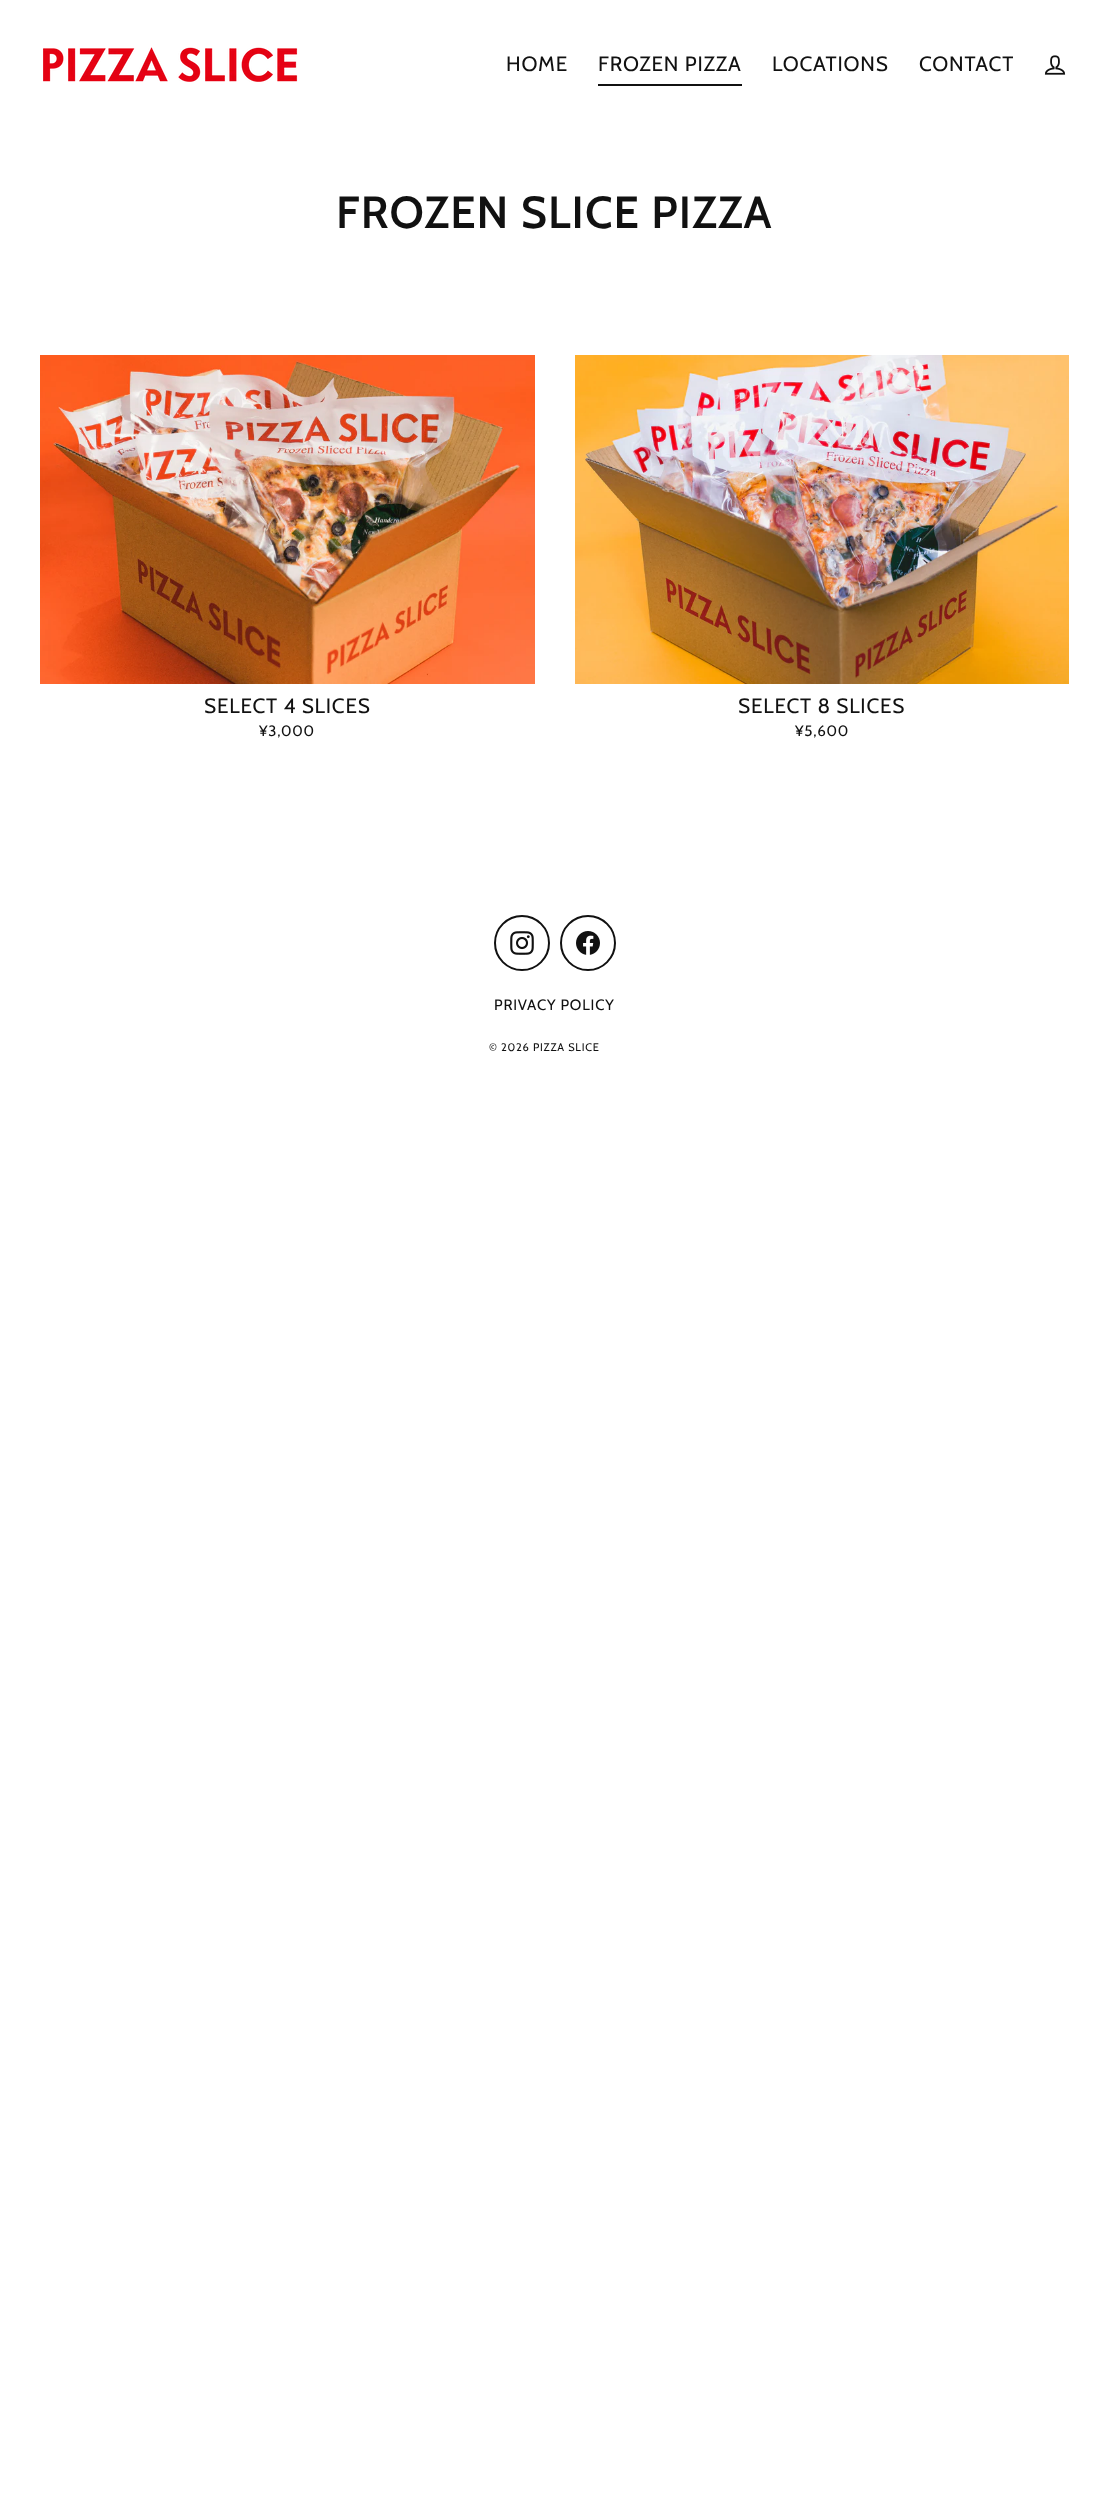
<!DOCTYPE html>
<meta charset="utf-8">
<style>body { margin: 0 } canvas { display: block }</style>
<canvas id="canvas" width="1109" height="2517"></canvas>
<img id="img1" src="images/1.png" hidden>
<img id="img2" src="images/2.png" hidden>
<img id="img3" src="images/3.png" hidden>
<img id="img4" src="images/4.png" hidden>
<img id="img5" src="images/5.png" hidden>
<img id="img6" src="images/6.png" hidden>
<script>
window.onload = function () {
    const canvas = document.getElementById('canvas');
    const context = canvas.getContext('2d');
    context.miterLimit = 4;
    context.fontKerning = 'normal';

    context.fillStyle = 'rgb(255, 255, 255)';
    context.fillRect(0, 0, 1109, 2517);
    context.drawImage(document.getElementById('img1'), 43, 47, 255, 35);
    context.fillStyle = 'rgb(17, 17, 17)';
    context.fillRect(598, 84, 144, 2);
    context.drawImage(document.getElementById('img2'), 1044, 55, 22, 20);
    context.drawImage(document.getElementById('img3'), 40, 355, 495, 329);
    context.drawImage(document.getElementById('img4'), 575, 355, 494, 329);
    context.beginPath();
    context.arc(522, 943, 27, 0, 2 * Math.PI);
    context.strokeStyle = 'rgb(17, 17, 17)';
    context.lineWidth = 2;
    context.stroke();
    context.drawImage(document.getElementById('img5'), 510, 931, 24, 24);
    context.beginPath();
    context.arc(588, 943, 27, 0, 2 * Math.PI);
    context.stroke();
    context.drawImage(document.getElementById('img6'), 576, 931, 24, 24);
    context.letterSpacing = '0.8px';
    context.font = '20.75px Cabin';
    context.fillText('HOME', 506, 71);
    context.fillText('FROZEN PIZZA', 598, 71);
    context.fillText('LOCATIONS', 772, 71);
    context.fillText('CONTACT', 919, 71);
    context.letterSpacing = '1.1px';
    context.font = '600 45px Cabin';
    context.fillText('FROZEN SLICE PIZZA', 336, 228);
    context.letterSpacing = '0.8px';
    context.font = '20.75px Cabin';
    context.fillText('SELECT 4 SLICES', 204, 713);
    context.font = '15px Cabin';
    context.fillText('¥3,000', 259, 736);
    context.font = '20.75px Cabin';
    context.fillText('SELECT 8 SLICES', 738, 713);
    context.font = '15px Cabin';
    context.fillText('¥5,600', 795, 736);
    context.fillText('PRIVACY POLICY', 494, 1010);
    context.font = '11px Cabin';
    context.fillText('© 2026 PIZZA SLICE', 489, 1051);
};
</script>
